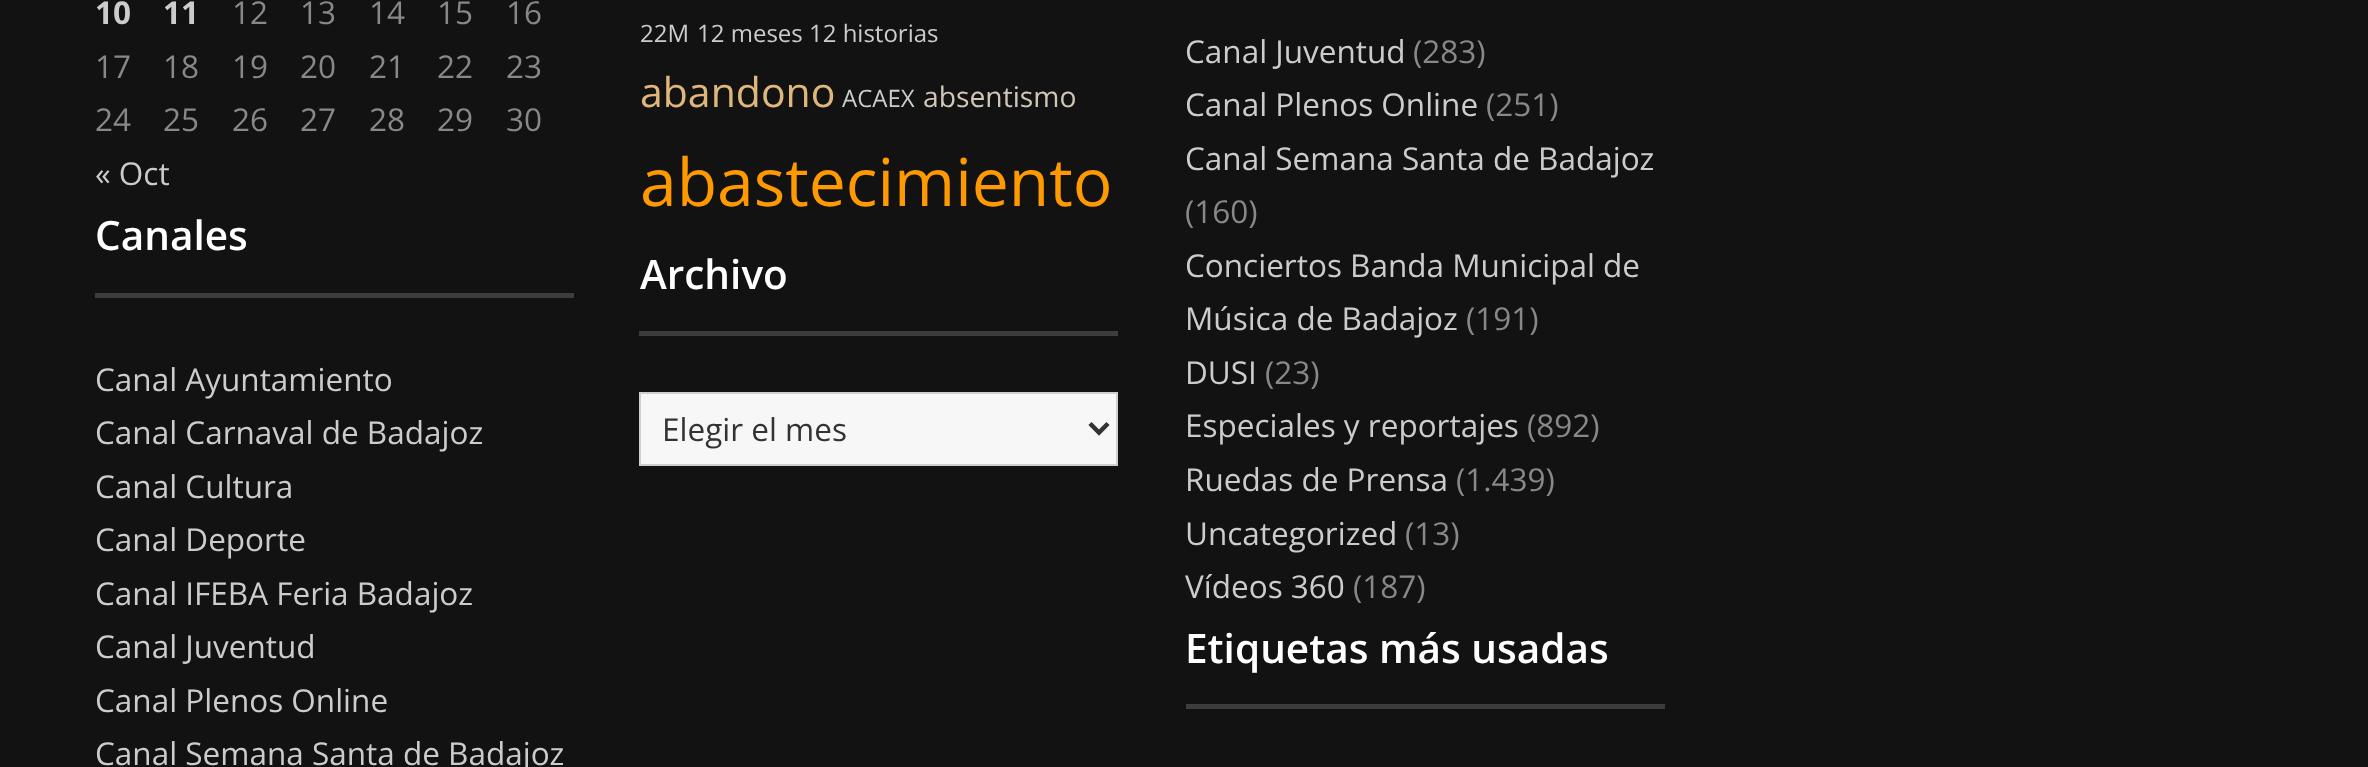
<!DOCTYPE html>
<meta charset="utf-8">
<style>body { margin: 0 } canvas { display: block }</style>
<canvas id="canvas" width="2368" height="767"></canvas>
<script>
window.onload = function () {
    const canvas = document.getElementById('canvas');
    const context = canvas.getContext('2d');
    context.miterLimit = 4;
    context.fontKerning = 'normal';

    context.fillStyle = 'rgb(18, 18, 18)';
    context.fillRect(0, 0, 2368, 767);
    context.fillStyle = 'rgb(60, 60, 60)';
    context.fillRect(95, 293, 479, 5);
    context.fillRect(639, 331, 479, 5);
    context.fillStyle = 'rgb(247, 247, 247)';
    context.beginPath();
    context.rect(640, 393, 477, 72);
    context.fill();
    context.strokeStyle = 'rgb(205, 207, 212)';
    context.lineWidth = 2;
    context.stroke();
    context.beginPath();
    context.moveTo(1090, 423.5);
    context.lineTo(1099, 432.5);
    context.lineTo(1108, 423.5);
    context.strokeStyle = 'rgb(51, 51, 51)';
    context.lineWidth = 4.5;
    context.stroke();
    context.fillStyle = 'rgb(60, 60, 60)';
    context.fillRect(1186, 704, 479, 5);
    context.font = 'bold 31.5px Open Sans';
    context.fillStyle = 'rgb(204, 204, 204)';
    context.fillText('10', 95, 24);
    context.fillText('11', 163, 24);
    context.font = '31.5px Open Sans';
    context.fillStyle = 'rgb(136, 136, 136)';
    context.fillText('12', 232, 24);
    context.fillText('13', 300, 24);
    context.fillText('14', 369, 24);
    context.fillText('15', 437, 24);
    context.fillText('16', 506, 24);
    context.fillText('17', 95, 78);
    context.fillText('18', 163, 78);
    context.fillText('19', 232, 78);
    context.fillText('20', 300, 78);
    context.fillText('21', 369, 78);
    context.fillText('22', 437, 78);
    context.fillText('23', 506, 78);
    context.fillText('24', 95, 131);
    context.fillText('25', 163, 131);
    context.fillText('26', 232, 131);
    context.fillText('27', 300, 131);
    context.fillText('28', 369, 131);
    context.fillText('29', 437, 131);
    context.fillText('30', 506, 131);
    context.fillStyle = 'rgb(204, 204, 204)';
    context.fillText('« Oct', 95, 185);
    context.font = '600 40.5px Open Sans';
    context.fillStyle = 'rgb(255, 255, 255)';
    context.fillText('Canales', 95, 250);
    context.font = '31.5px Open Sans';
    context.fillStyle = 'rgb(204, 204, 204)';
    context.fillText('Canal Ayuntamiento', 95, 391);
    context.fillText('Canal Carnaval de Badajoz', 95, 444);
    context.fillText('Canal Cultura', 95, 498);
    context.fillText('Canal Deporte', 95, 551);
    context.fillText('Canal IFEBA Feria Badajoz', 95, 605);
    context.fillText('Canal Juventud', 95, 658);
    context.fillText('Canal Plenos Online', 95, 712);
    context.fillText('Canal Semana Santa de Badajoz', 95, 765);
    context.font = '24px Open Sans';
    context.fillText('22M', 640, 42);
    context.fillText('12 meses 12 historias', 697, 42);
    context.font = '41px Open Sans';
    context.fillStyle = 'rgb(224, 183, 122)';
    context.fillText('abandono', 640, 107);
    context.font = '24px Open Sans';
    context.fillStyle = 'rgb(204, 204, 204)';
    context.fillText('ACAEX', 842, 107);
    context.font = '28.25px Open Sans';
    context.fillStyle = 'rgb(209, 198, 183)';
    context.fillText('absentismo', 923, 107);
    context.font = '66px Open Sans';
    context.fillStyle = 'rgb(255, 153, 0)';
    context.fillText('abastecimiento', 640, 206);
    context.font = '600 40.5px Open Sans';
    context.fillStyle = 'rgb(255, 255, 255)';
    context.fillText('Archivo', 640, 289);
    context.font = '31.5px Open Sans';
    context.fillStyle = 'rgb(51, 51, 51)';
    context.fillText('Elegir el mes', 662, 441);
    context.fillStyle = 'rgb(204, 204, 204)';
    context.fillText('Canal Juventud', 1185, 63);
    context.fillStyle = 'rgb(136, 136, 136)';
    context.fillText('(283)', 1413, 63);
    context.fillStyle = 'rgb(204, 204, 204)';
    context.fillText('Canal Plenos Online', 1185, 116);
    context.fillStyle = 'rgb(136, 136, 136)';
    context.fillText('(251)', 1486, 116);
    context.fillStyle = 'rgb(204, 204, 204)';
    context.fillText('Canal Semana Santa de Badajoz', 1185, 170);
    context.fillStyle = 'rgb(136, 136, 136)';
    context.fillText('(160)', 1185, 223);
    context.fillStyle = 'rgb(204, 204, 204)';
    context.fillText('Conciertos Banda Municipal de', 1185, 277);
    context.fillText('Música de Badajoz', 1185, 330);
    context.fillStyle = 'rgb(136, 136, 136)';
    context.fillText('(191)', 1466, 330);
    context.fillStyle = 'rgb(204, 204, 204)';
    context.fillText('DUSI', 1185, 384);
    context.fillStyle = 'rgb(136, 136, 136)';
    context.fillText('(23)', 1265, 384);
    context.fillStyle = 'rgb(204, 204, 204)';
    context.fillText('Especiales y reportajes', 1185, 437);
    context.fillStyle = 'rgb(136, 136, 136)';
    context.fillText('(892)', 1527, 437);
    context.fillStyle = 'rgb(204, 204, 204)';
    context.fillText('Ruedas de Prensa', 1185, 491);
    context.fillStyle = 'rgb(136, 136, 136)';
    context.fillText('(1.439)', 1456, 491);
    context.fillStyle = 'rgb(204, 204, 204)';
    context.fillText('Uncategorized', 1185, 545);
    context.fillStyle = 'rgb(136, 136, 136)';
    context.fillText('(13)', 1405, 545);
    context.fillStyle = 'rgb(204, 204, 204)';
    context.fillText('Vídeos 360', 1185, 598);
    context.fillStyle = 'rgb(136, 136, 136)';
    context.fillText('(187)', 1353, 598);
    context.font = '600 40.5px Open Sans';
    context.fillStyle = 'rgb(255, 255, 255)';
    context.fillText('Etiquetas más usadas', 1185, 663);
};
</script>
